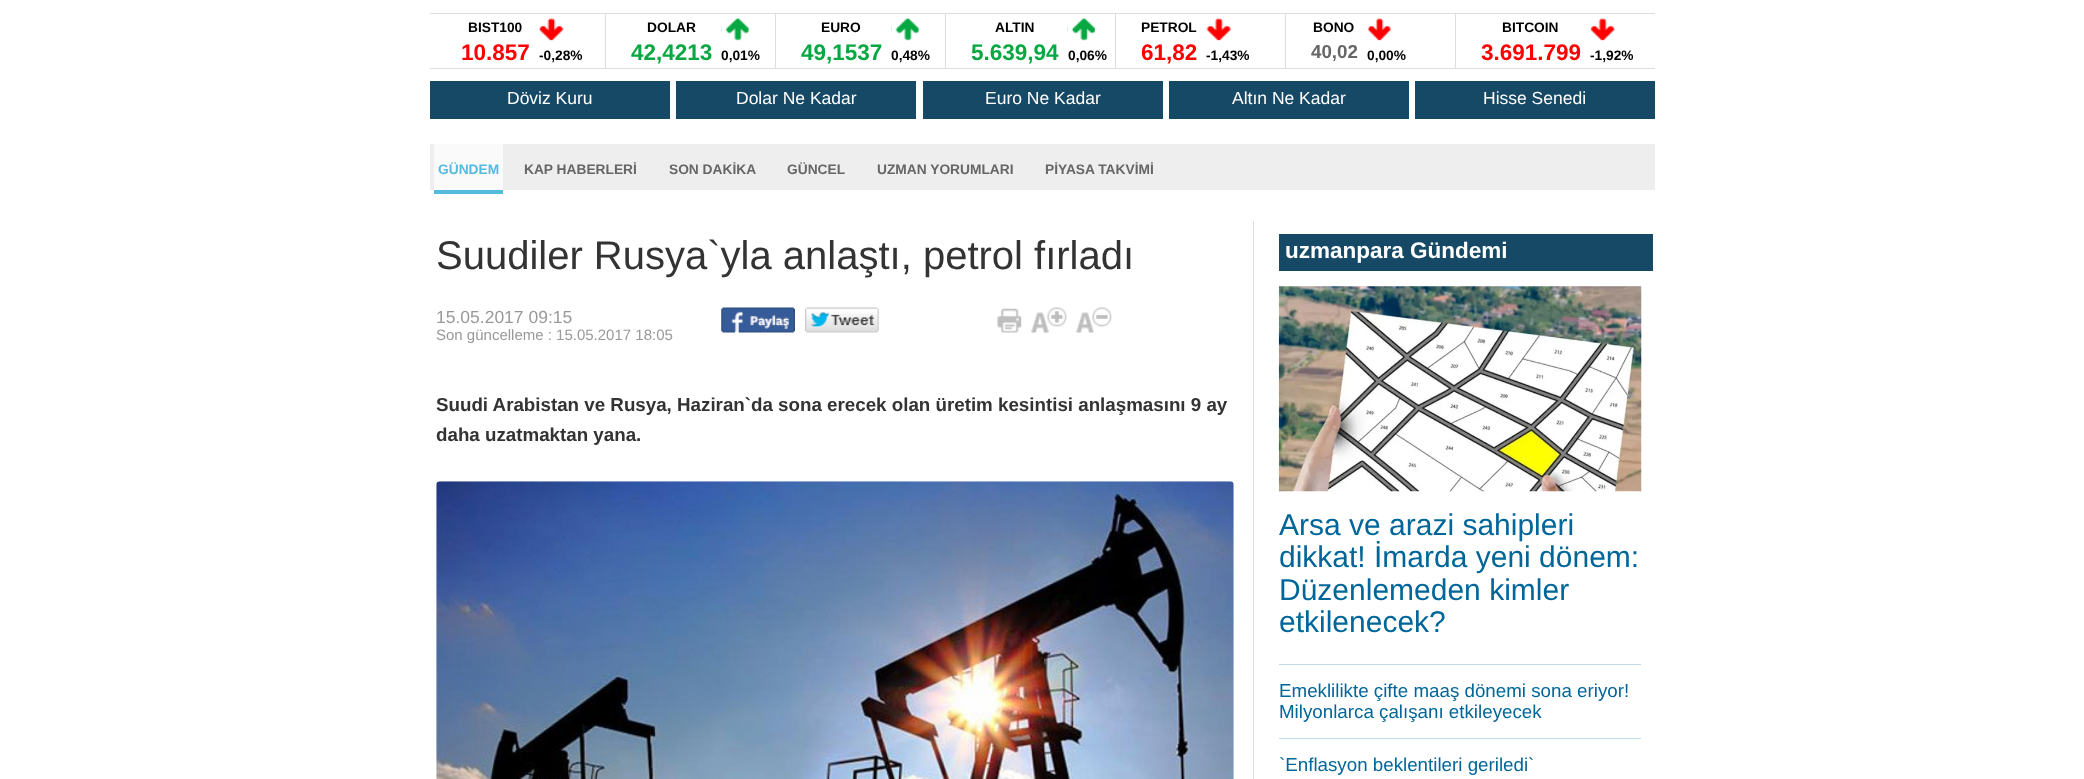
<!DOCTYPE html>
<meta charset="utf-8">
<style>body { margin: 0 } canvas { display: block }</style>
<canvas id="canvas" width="2084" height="779"></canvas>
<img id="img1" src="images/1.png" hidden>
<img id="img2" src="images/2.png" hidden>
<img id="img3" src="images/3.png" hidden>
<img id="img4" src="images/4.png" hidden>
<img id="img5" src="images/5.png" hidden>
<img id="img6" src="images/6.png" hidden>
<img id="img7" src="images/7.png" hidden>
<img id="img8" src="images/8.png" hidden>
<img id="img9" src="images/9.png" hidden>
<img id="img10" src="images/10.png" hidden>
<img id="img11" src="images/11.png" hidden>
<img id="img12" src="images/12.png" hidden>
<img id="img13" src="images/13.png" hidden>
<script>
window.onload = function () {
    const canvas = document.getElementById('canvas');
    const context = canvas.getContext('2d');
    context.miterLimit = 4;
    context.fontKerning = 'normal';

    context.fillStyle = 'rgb(255, 255, 255)';
    context.fillRect(0, 0, 2084, 779);
    context.fillStyle = 'rgb(221, 221, 221)';
    context.fillRect(430, 13, 1225, 1);
    context.fillRect(430, 68, 1225, 1);
    context.fillRect(605, 14, 1, 54);
    context.drawImage(document.getElementById('img1'), 538, 18, 26, 23);
    context.fillRect(775, 14, 1, 54);
    context.drawImage(document.getElementById('img2'), 721, 18, 28, 23);
    context.fillRect(945, 14, 1, 54);
    context.drawImage(document.getElementById('img2'), 891, 18, 28, 23);
    context.fillRect(1115, 14, 1, 54);
    context.drawImage(document.getElementById('img3'), 1067, 18, 28, 23);
    context.fillRect(1285, 14, 1, 54);
    context.drawImage(document.getElementById('img4'), 1206, 18, 25, 23);
    context.fillRect(1455, 14, 1, 54);
    context.drawImage(document.getElementById('img5'), 1367, 18, 24, 23);
    context.drawImage(document.getElementById('img6'), 1590, 18, 25, 23);
    context.fillStyle = 'rgb(22, 73, 101)';
    context.fillRect(430, 81, 240, 38);
    context.fillRect(676, 81, 240, 38);
    context.fillRect(923, 81, 240, 38);
    context.fillRect(1169, 81, 240, 38);
    context.fillRect(1415, 81, 240, 38);
    context.fillStyle = 'rgb(238, 238, 238)';
    context.fillRect(430, 144, 1225, 46);
    context.fillStyle = 'rgb(250, 250, 250)';
    context.fillRect(434, 144, 69, 46);
    context.fillStyle = 'rgb(85, 187, 221)';
    context.fillRect(434, 190, 69, 4);
    context.drawImage(document.getElementById('img7'), 721, 307, 74, 26);
    context.drawImage(document.getElementById('img8'), 805, 307, 74, 26);
    context.drawImage(document.getElementById('img9'), 997, 308, 25, 25);
    context.drawImage(document.getElementById('img10'), 1031, 307, 36, 26);
    context.drawImage(document.getElementById('img11'), 1076, 307, 36, 26);
    context.drawImage(document.getElementById('img12'), 436, 481, 798, 298);
    context.fillStyle = 'rgb(217, 223, 226)';
    context.fillRect(1253, 221, 1, 558);
    context.fillStyle = 'rgb(22, 73, 101)';
    context.fillRect(1279, 234, 374, 37);
    context.fillStyle = 'rgb(194, 216, 230)';
    context.fillRect(1279, 664, 362, 1);
    context.drawImage(document.getElementById('img13'), 1278, 286, 364, 206);
    context.fillRect(1279, 738, 362, 1);
    context.font = 'bold 13.75px Liberation Sans';
    context.fillStyle = 'rgb(0, 0, 0)';
    context.fillText('BIST100', 468, 32);
    context.font = 'bold 22.5px Liberation Sans';
    context.fillStyle = 'rgb(255, 0, 1)';
    context.fillText('10.857', 461, 60);
    context.font = 'bold 13.75px Liberation Sans';
    context.fillStyle = 'rgb(0, 0, 0)';
    context.fillText('-0,28%', 539, 60);
    context.fillText('DOLAR', 647, 32);
    context.font = 'bold 22.5px Liberation Sans';
    context.fillStyle = 'rgb(7, 168, 66)';
    context.fillText('42,4213', 631, 60);
    context.font = 'bold 13.75px Liberation Sans';
    context.fillStyle = 'rgb(0, 0, 0)';
    context.fillText('0,01%', 721, 60);
    context.fillText('EURO', 821, 32);
    context.font = 'bold 22.5px Liberation Sans';
    context.fillStyle = 'rgb(7, 168, 66)';
    context.fillText('49,1537', 801, 60);
    context.font = 'bold 13.75px Liberation Sans';
    context.fillStyle = 'rgb(0, 0, 0)';
    context.fillText('0,48%', 891, 60);
    context.fillText('ALTIN', 995, 32);
    context.font = 'bold 22.5px Liberation Sans';
    context.fillStyle = 'rgb(7, 168, 66)';
    context.fillText('5.639,94', 971, 60);
    context.font = 'bold 13.75px Liberation Sans';
    context.fillStyle = 'rgb(0, 0, 0)';
    context.fillText('0,06%', 1068, 60);
    context.fillText('PETROL', 1141, 32);
    context.font = 'bold 22.5px Liberation Sans';
    context.fillStyle = 'rgb(255, 0, 1)';
    context.fillText('61,82', 1141, 60);
    context.font = 'bold 13.75px Liberation Sans';
    context.fillStyle = 'rgb(0, 0, 0)';
    context.fillText('-1,43%', 1206, 60);
    context.fillText('BONO', 1313, 32);
    context.font = 'bold 18.75px Liberation Sans';
    context.fillStyle = 'rgb(102, 102, 102)';
    context.fillText('40,02', 1311, 58);
    context.font = 'bold 13.75px Liberation Sans';
    context.fillStyle = 'rgb(0, 0, 0)';
    context.fillText('0,00%', 1367, 60);
    context.fillText('BITCOIN', 1502, 32);
    context.font = 'bold 22.5px Liberation Sans';
    context.fillStyle = 'rgb(255, 0, 1)';
    context.fillText('3.691.799', 1481, 60);
    context.font = 'bold 13.75px Liberation Sans';
    context.fillStyle = 'rgb(0, 0, 0)';
    context.fillText('-1,92%', 1590, 60);
    context.font = '17.5px Liberation Sans';
    context.fillStyle = 'rgb(255, 255, 255)';
    context.fillText('Döviz Kuru', 507, 104);
    context.fillText('Dolar Ne Kadar', 736, 104);
    context.fillText('Euro Ne Kadar', 985, 104);
    context.fillText('Altın Ne Kadar', 1232, 104);
    context.fillText('Hisse Senedi', 1483, 104);
    context.font = 'bold 13.75px Liberation Sans';
    context.fillStyle = 'rgb(85, 187, 221)';
    context.fillText('GÜNDEM', 438, 174);
    context.fillStyle = 'rgb(102, 102, 102)';
    context.fillText('KAP HABERLERİ', 524, 174);
    context.fillText('SON DAKİKA', 669, 174);
    context.fillText('GÜNCEL', 787, 174);
    context.fillText('UZMAN YORUMLARI', 877, 174);
    context.fillText('PİYASA TAKVİMİ', 1045, 174);
    context.font = '40px Liberation Sans';
    context.fillStyle = 'rgb(51, 51, 51)';
    context.fillText('Suudiler Rusya`yla anlaştı, petrol fırladı', 436, 269);
    context.font = '17.5px Liberation Sans';
    context.fillStyle = 'rgb(153, 153, 153)';
    context.fillText('15.05.2017 09:15', 436, 323);
    context.font = '15px Liberation Sans';
    context.fillText('Son güncelleme : 15.05.2017 18:05', 436, 340);
    context.font = 'bold 18.75px Liberation Sans';
    context.fillStyle = 'rgb(51, 51, 51)';
    context.fillText('Suudi Arabistan ve Rusya, Haziran`da sona erecek olan üretim kesintisi anlaşmasını 9 ay', 436, 411);
    context.fillText('daha uzatmaktan yana.', 436, 441);
    context.font = 'bold 22.5px Liberation Sans';
    context.fillStyle = 'rgb(255, 255, 255)';
    context.fillText('uzmanpara Gündemi', 1285, 258);
    context.font = '30px Liberation Sans';
    context.fillStyle = 'rgb(0, 102, 153)';
    context.fillText('Arsa ve arazi sahipleri', 1279, 535);
    context.fillText('dikkat! İmarda yeni dönem:', 1279, 567);
    context.fillText('Düzenlemeden kimler', 1279, 600);
    context.fillText('etkilenecek?', 1279, 632);
    context.font = '18.75px Liberation Sans';
    context.fillText('Emeklilikte çifte maaş dönemi sona eriyor!', 1279, 697);
    context.fillText('Milyonlarca çalışanı etkileyecek', 1279, 718);
    context.fillText('`Enflasyon beklentileri geriledi`', 1279, 771);
};
</script>
